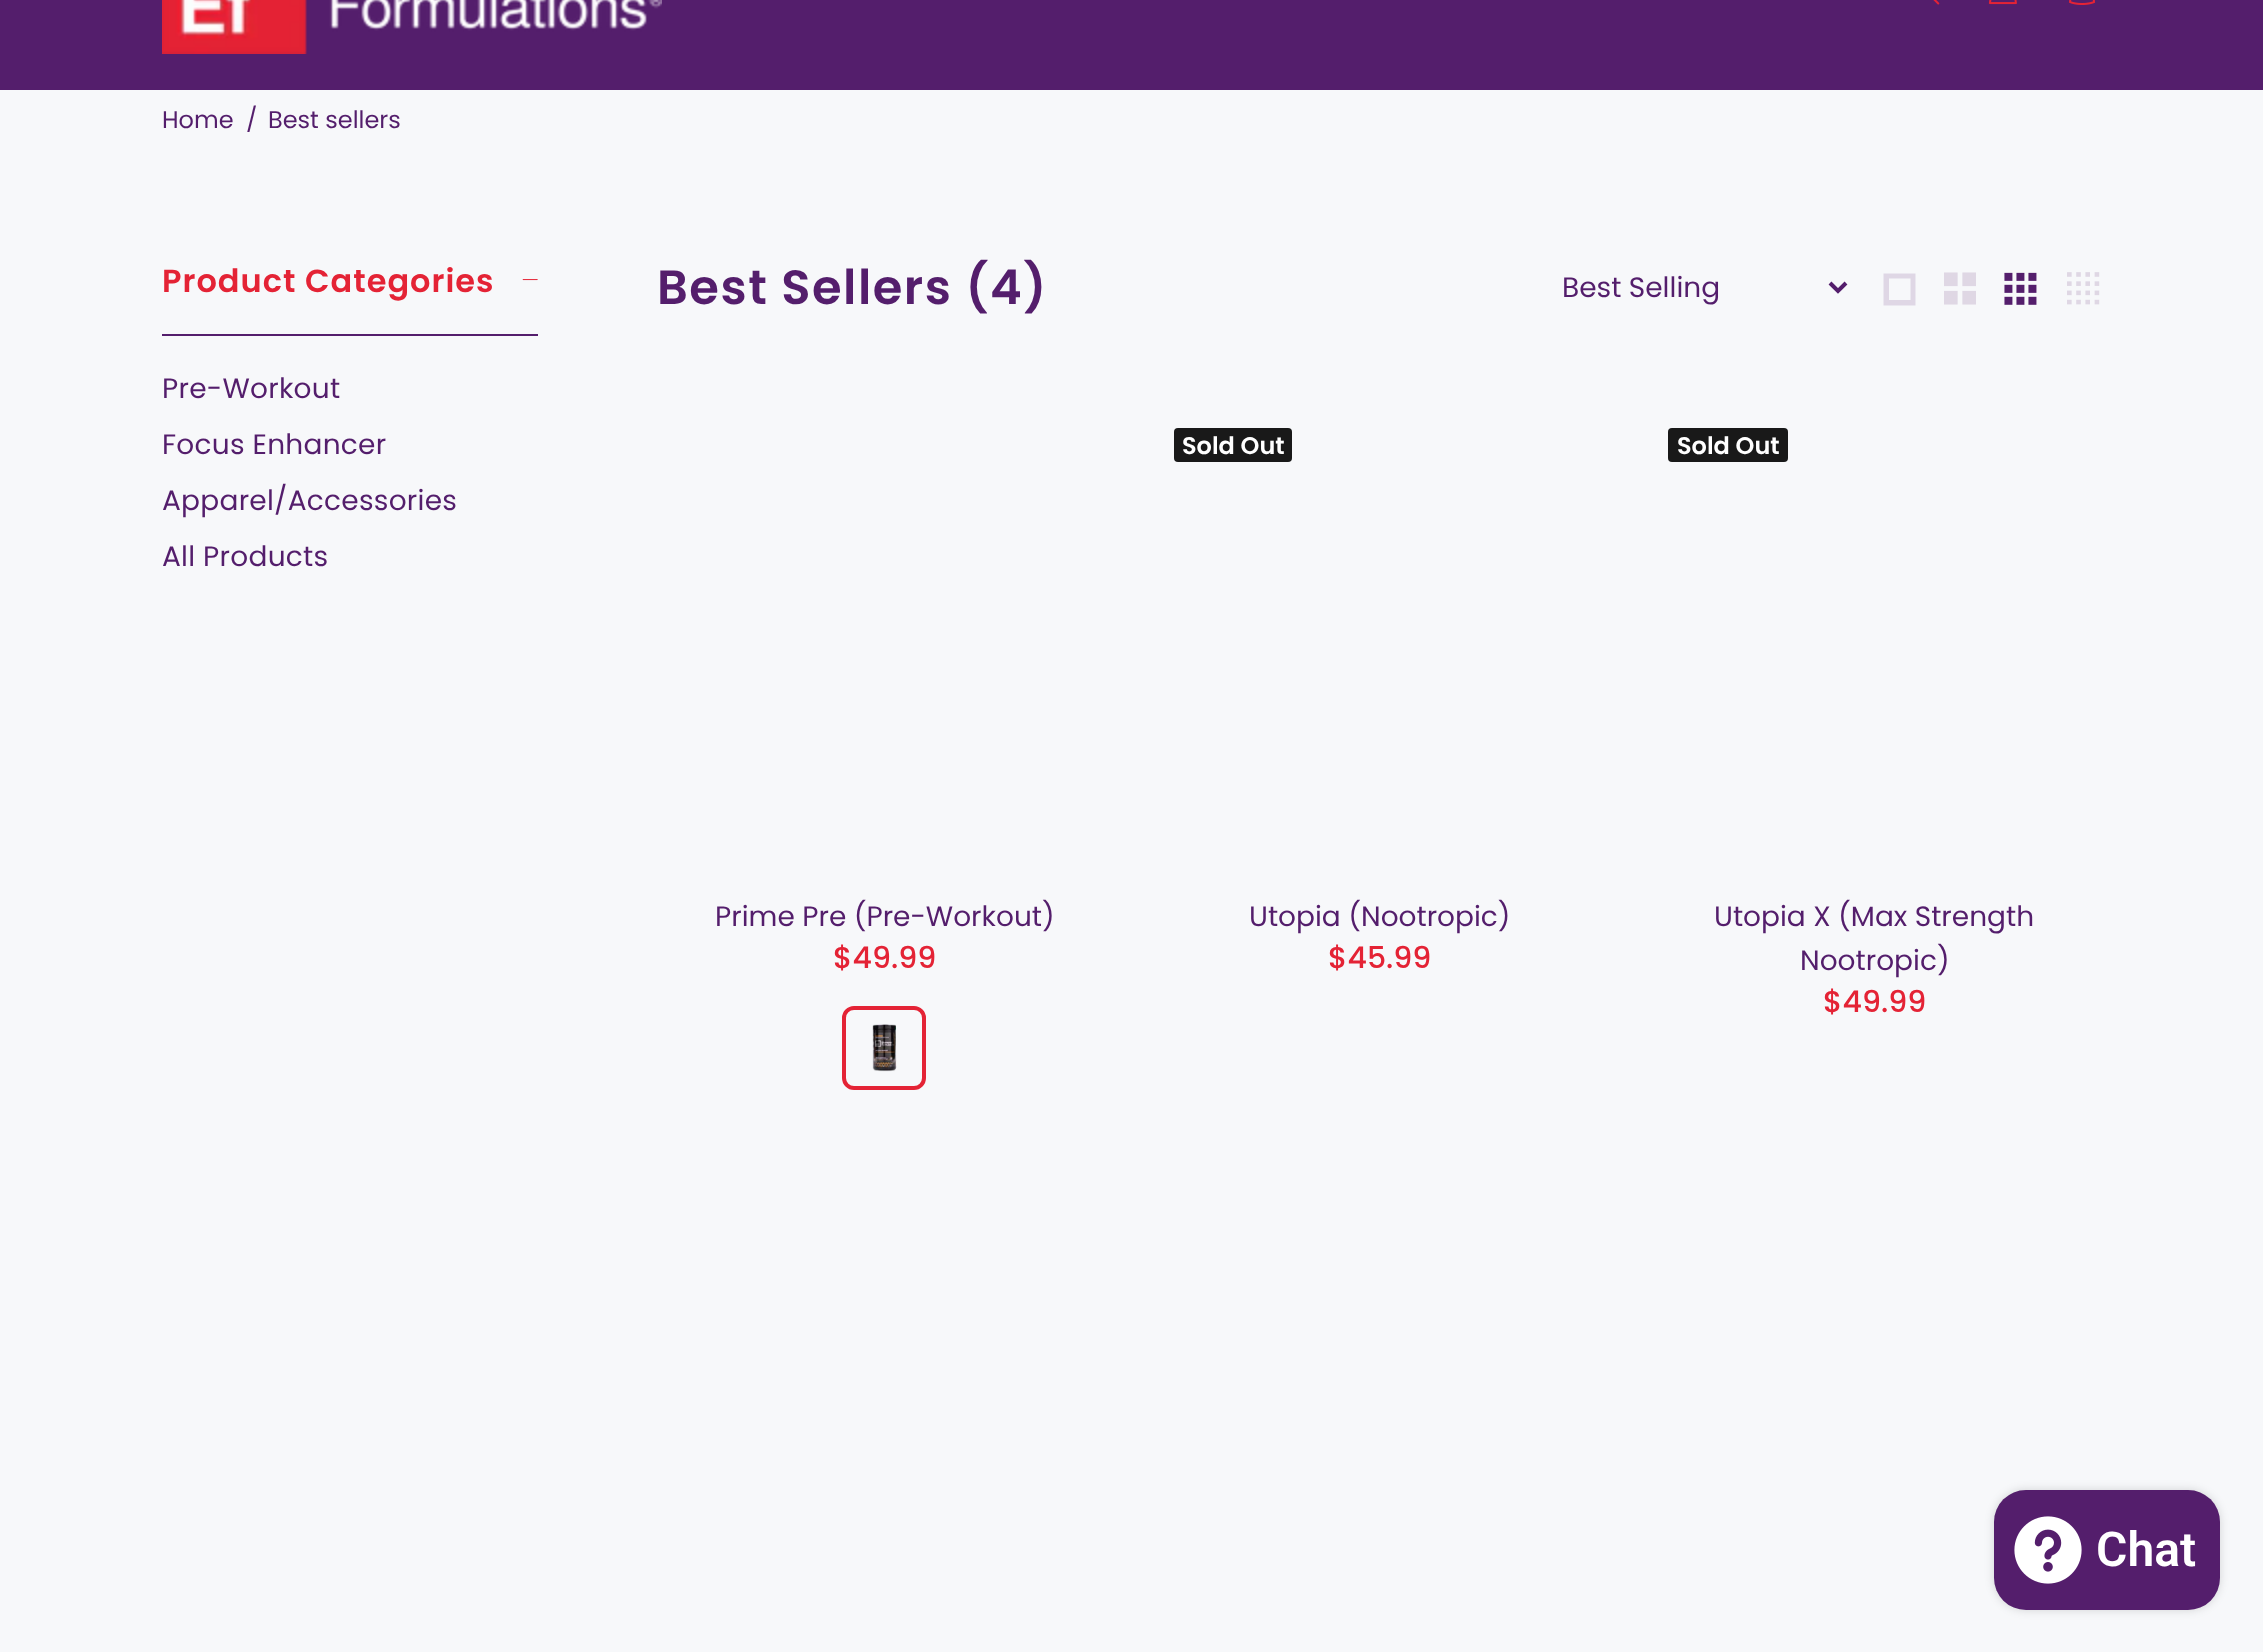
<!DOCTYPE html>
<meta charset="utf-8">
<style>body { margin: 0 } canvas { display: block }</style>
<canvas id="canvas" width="2263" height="1652"></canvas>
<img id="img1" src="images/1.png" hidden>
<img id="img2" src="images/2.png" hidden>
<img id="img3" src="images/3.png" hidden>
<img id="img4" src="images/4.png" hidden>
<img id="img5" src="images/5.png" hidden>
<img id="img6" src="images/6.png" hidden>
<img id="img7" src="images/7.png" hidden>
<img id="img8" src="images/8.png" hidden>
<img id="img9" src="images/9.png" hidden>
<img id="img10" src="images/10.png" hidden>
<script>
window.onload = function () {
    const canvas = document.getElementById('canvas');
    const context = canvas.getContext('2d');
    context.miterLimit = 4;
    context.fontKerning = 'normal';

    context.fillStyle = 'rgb(247, 248, 250)';
    context.fillRect(0, 0, 2263, 1652);
    context.fillStyle = 'rgb(84, 30, 108)';
    context.fillRect(0, 0, 2263, 90);
    context.drawImage(document.getElementById('img1'), 162, 0, 500, 54);
    context.drawImage(document.getElementById('img2'), 1933, 0, 7, 5);
    context.drawImage(document.getElementById('img3'), 1988, 0, 29, 5);
    context.drawImage(document.getElementById('img4'), 2069, 0, 27, 5);
    context.fillRect(162, 334, 376, 2);
    context.drawImage(document.getElementById('img5'), 522, 279, 16, 2);
    context.beginPath();
    context.moveTo(1830, 283);
    context.lineTo(1838, 291);
    context.lineTo(1846, 283);
    context.strokeStyle = 'rgb(84, 30, 108)';
    context.lineWidth = 4;
    context.stroke();
    context.fillStyle = 'rgb(223, 215, 229)';
    context.beginPath();
    context.moveTo(1883.5, 305.5);
    context.lineTo(1883.5, 273.5);
    context.lineTo(1915.5, 273.5);
    context.lineTo(1915.5, 305.5);
    context.closePath();
    context.moveTo(1889, 300);
    context.lineTo(1910.5, 300);
    context.lineTo(1910.5, 278.5);
    context.lineTo(1889, 278.5);
    context.closePath();
    context.fill();
    context.drawImage(document.getElementById('img6'), 1944, 272, 32, 33);
    context.drawImage(document.getElementById('img7'), 2004, 272, 33, 33);
    context.drawImage(document.getElementById('img8'), 2067, 272, 33, 33);
    context.drawImage(document.getElementById('img9'), 872, 1024, 25, 48);
    context.beginPath();
    context.roundRect(844, 1008, 80, 80, 10);
    context.strokeStyle = 'rgb(228, 35, 53)';
    context.stroke();
    context.fillStyle = 'rgb(25, 25, 25)';
    context.beginPath();
    context.roundRect(1174, 428, 118, 34, 4);
    context.fill();
    context.beginPath();
    context.roundRect(1668, 428, 120, 34, 4);
    context.fill();
    context.fillStyle = 'rgba(0, 0, 0, 0.15)';
    context.filter = 'blur(5px)';
    context.beginPath();
    context.roundRect(1994, 1490, 226, 120, 32);
    context.fill();
    context.filter = 'none';
    context.fillStyle = 'rgb(84, 30, 108)';
    context.beginPath();
    context.roundRect(1994, 1490, 226, 120, 32);
    context.fill();
    context.drawImage(document.getElementById('img10'), 2014, 1516, 68, 68);
    context.font = '24px Poppins';
    context.fillText('Home', 162, 128);
    context.fillText('/', 246, 128);
    context.fillText('Best sellers', 268, 128);
    context.letterSpacing = '1px';
    context.font = '600 32px Poppins';
    context.fillStyle = 'rgb(228, 35, 53)';
    context.fillText('Product Categories', 162, 292);
    context.letterSpacing = '0.25px';
    context.font = '28px Poppins';
    context.fillStyle = 'rgb(84, 30, 108)';
    context.fillText('Pre-Workout', 162, 398);
    context.fillText('Focus Enhancer', 162, 454);
    context.fillText('Apparel/Accessories', 162, 510);
    context.fillText('All Products', 162, 566);
    context.letterSpacing = '1.5px';
    context.font = '600 48px Poppins';
    context.fillText('Best Sellers (4)', 657, 304);
    context.letterSpacing = '0px';
    context.font = '28px Poppins';
    context.fillText('Best Selling', 1562, 297);
    context.fillText('Prime Pre (Pre-Workout)', 715, 926);
    context.font = '500 30px Poppins';
    context.fillStyle = 'rgb(228, 35, 53)';
    context.fillText('$49.99', 833, 968);
    context.font = '600 24px Poppins';
    context.fillStyle = 'rgb(255, 255, 255)';
    context.fillText('Sold Out', 1182, 454);
    context.font = '28px Poppins';
    context.fillStyle = 'rgb(84, 30, 108)';
    context.fillText('Utopia (Nootropic)', 1249, 926);
    context.font = '500 30px Poppins';
    context.fillStyle = 'rgb(228, 35, 53)';
    context.fillText('$45.99', 1328, 968);
    context.font = '600 24px Poppins';
    context.fillStyle = 'rgb(255, 255, 255)';
    context.fillText('Sold Out', 1677, 454);
    context.font = '28px Poppins';
    context.fillStyle = 'rgb(84, 30, 108)';
    context.fillText('Utopia X (Max Strength', 1714, 926);
    context.fillText('Nootropic)', 1800, 970);
    context.font = '500 30px Poppins';
    context.fillStyle = 'rgb(228, 35, 53)';
    context.fillText('$49.99', 1823, 1012);
    context.font = '600 48px Roboto';
    context.fillStyle = 'rgb(255, 255, 255)';
    context.fillText('Chat', 2096, 1566);
};
</script>
